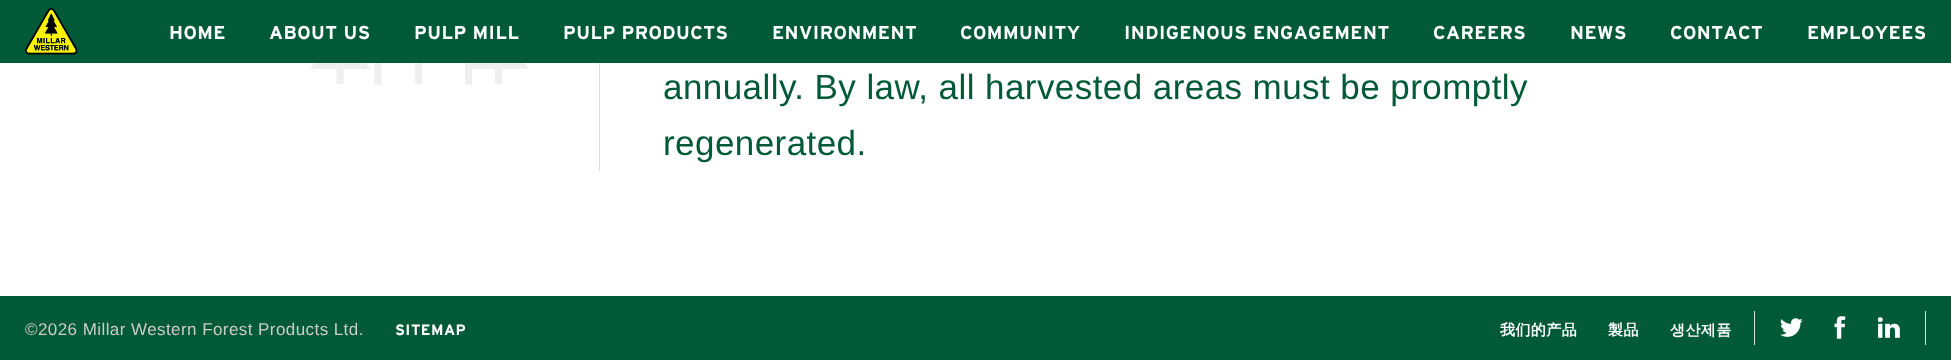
<!DOCTYPE html>
<meta charset="utf-8">
<style>body { margin: 0 } canvas { display: block }</style>
<canvas id="canvas" width="1951" height="360"></canvas>
<img id="img1" src="images/1.png" hidden>
<img id="img2" src="images/2.png" hidden>
<img id="img3" src="images/3.png" hidden>
<img id="img4" src="images/4.png" hidden>
<img id="img5" src="images/5.png" hidden>
<script>
window.onload = function () {
    const canvas = document.getElementById('canvas');
    const context = canvas.getContext('2d');
    context.miterLimit = 4;
    context.fontKerning = 'normal';

    context.fillStyle = 'rgb(255, 255, 255)';
    context.fillRect(0, 0, 1951, 360);
    context.fillStyle = 'rgb(0, 89, 55)';
    context.fillRect(0, 0, 1951, 63);
    context.drawImage(document.getElementById('img1'), 25, 8, 53, 47);
    context.fillStyle = 'rgb(222, 222, 222)';
    context.fillRect(599, 63, 1, 108);
    context.drawImage(document.getElementById('img2'), 310, 63, 219, 22);
    context.fillStyle = 'rgb(0, 89, 55)';
    context.fillRect(0, 296, 1951, 64);
    context.fillStyle = 'rgb(222, 222, 222)';
    context.fillRect(1925, 311, 1, 34);
    context.fillRect(1754, 311, 1, 34);
    context.drawImage(document.getElementById('img3'), 1780, 318, 23, 19);
    context.drawImage(document.getElementById('img4'), 1834, 316, 12, 23);
    context.drawImage(document.getElementById('img5'), 1878, 317, 22, 21);
    context.letterSpacing = '0.43px';
    context.font = 'bold 18.75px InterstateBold';
    context.fillStyle = 'rgb(255, 255, 255)';
    context.fillText('HOME', 169, 39);
    context.fillText('ABOUT US', 269, 39);
    context.fillText('PULP MILL', 414, 39);
    context.fillText('PULP PRODUCTS', 563, 39);
    context.fillText('ENVIRONMENT', 772, 39);
    context.fillText('COMMUNITY', 960, 39);
    context.fillText('INDIGENOUS ENGAGEMENT', 1124, 39);
    context.fillText('CAREERS', 1433, 39);
    context.fillText('NEWS', 1570, 39);
    context.fillText('CONTACT', 1670, 39);
    context.fillText('EMPLOYEES', 1807, 39);
    context.font = '35px Liberation Sans';
    context.fillStyle = 'rgb(0, 89, 55)';
    context.fillText('annually. By law, all harvested areas must be promptly', 663, 99);
    context.fillText('regenerated.', 663, 155);
    context.font = '17px Liberation Sans';
    context.fillStyle = 'rgb(204, 204, 204)';
    context.fillText('©2026 Millar Western Forest Products Ltd.', 25, 335);
    context.font = 'bold 15px InterstateBold';
    context.fillStyle = 'rgb(255, 255, 255)';
    context.fillText('SITEMAP', 395, 335);
    context.font = 'bold 15px WenQuanYi Zen Hei';
    context.fillText('我们的产品', 1500, 335);
    context.fillText('製品', 1608, 335);
    context.fillText('생산제품', 1670, 335);
};
</script>
